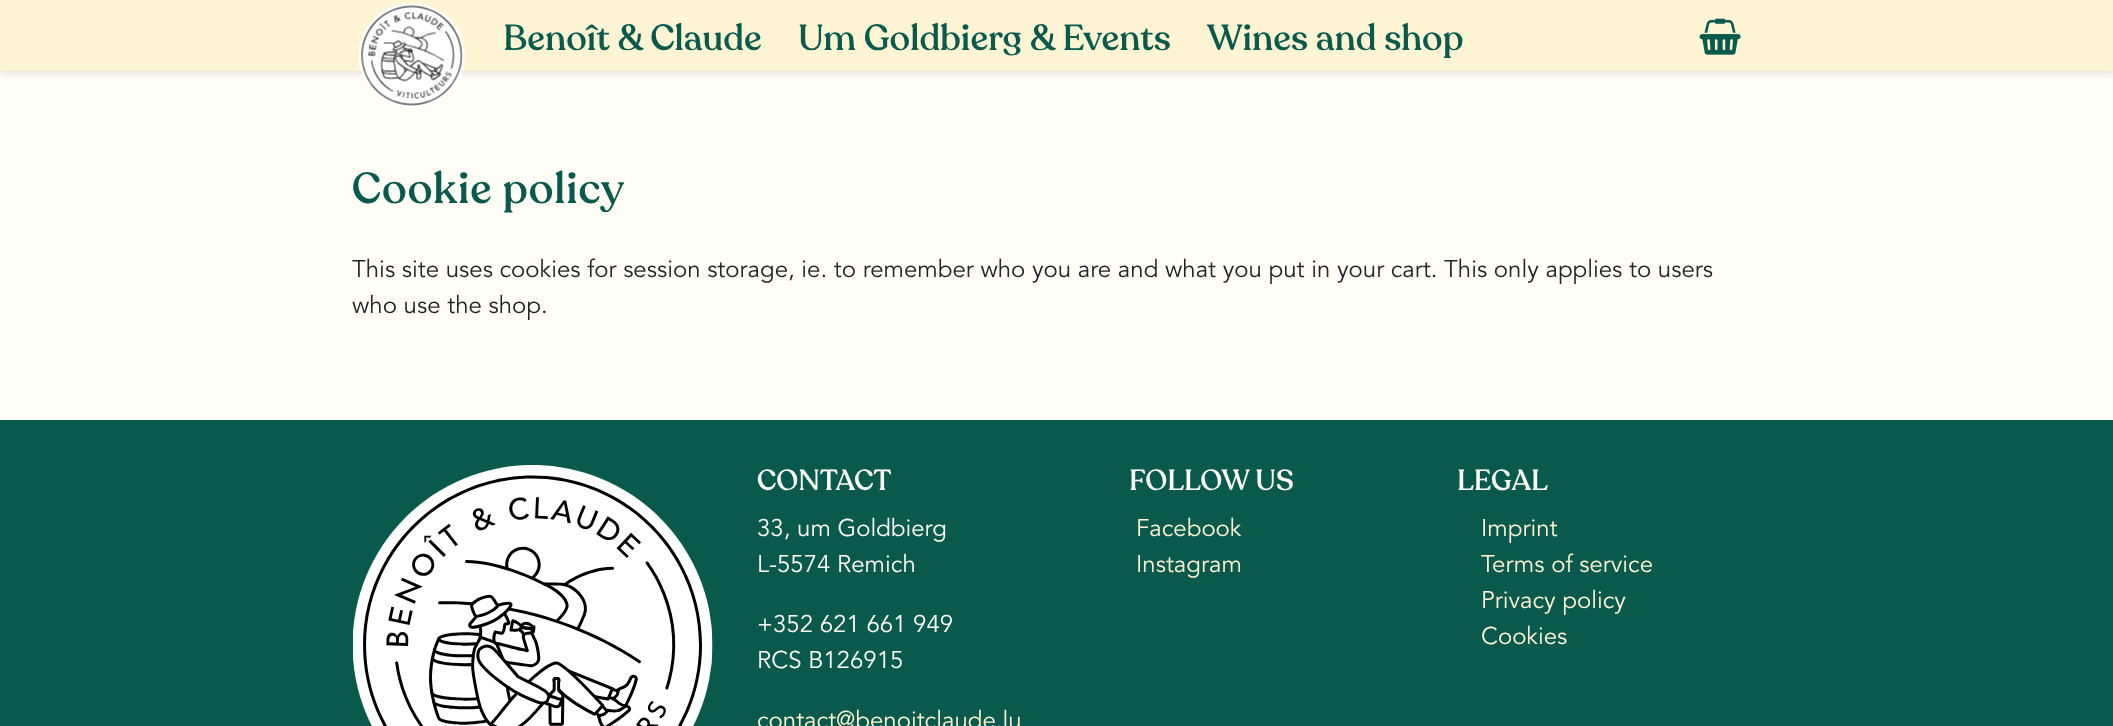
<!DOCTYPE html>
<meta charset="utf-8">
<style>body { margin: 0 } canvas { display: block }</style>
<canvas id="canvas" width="2113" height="726"></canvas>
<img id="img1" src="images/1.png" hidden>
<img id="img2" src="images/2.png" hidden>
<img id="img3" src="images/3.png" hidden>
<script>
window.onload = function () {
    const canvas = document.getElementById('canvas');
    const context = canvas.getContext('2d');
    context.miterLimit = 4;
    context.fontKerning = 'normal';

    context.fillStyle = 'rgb(9, 90, 77)';
    context.fillRect(0, 0, 2113, 726);
    context.fillStyle = 'rgb(255, 253, 245)';
    context.fillRect(0, 71, 2113, 349);
    context.fillStyle = 'rgba(0, 0, 0, 0.1)';
    context.filter = 'blur(3px)';
    context.beginPath();
    context.rect(0, -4, 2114, 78);
    context.fill();
    context.filter = 'none';
    context.fillStyle = 'rgb(255, 245, 213)';
    context.fillRect(0, 0, 2113, 71);
    context.drawImage(document.getElementById('img1'), 359, 3, 107, 105);
    context.drawImage(document.getElementById('img2'), 1699, 18, 42, 37);
    context.drawImage(document.getElementById('img3'), 353, 465, 360, 261);
    context.font = '500 36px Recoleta';
    context.fillStyle = 'rgb(9, 90, 77)';
    context.fillText('Benoît & Claude', 503, 50);
    context.fillText('Um Goldbierg & Events', 798, 50);
    context.fillText('Wines and shop', 1207, 50);
    context.letterSpacing = '0.9px';
    context.font = '500 43.25px Recoleta';
    context.fillText('Cookie policy', 352, 203);
    context.letterSpacing = '0px';
    context.font = '24px Avenir';
    context.fillStyle = 'rgb(33, 37, 41)';
    context.fillText('This site uses cookies for session storage, ie. to remember who you are and what you put in your cart. This only applies to users', 352, 277);
    context.fillText('who use the shop.', 352, 313);
    context.font = '500 28.75px Recoleta';
    context.fillStyle = 'rgb(255, 253, 245)';
    context.fillText('CONTACT', 757, 490);
    context.font = '24px Avenir';
    context.fillText('33, um Goldbierg', 757, 536);
    context.fillText('L-5574 Remich', 757, 572);
    context.fillText('+352 621 661 949', 757, 632);
    context.fillText('RCS B126915', 757, 668);
    context.fillStyle = 'rgb(255, 245, 213)';
    context.fillText('contact@benoitclaude.lu', 757, 728);
    context.font = '500 28.75px Recoleta';
    context.fillStyle = 'rgb(255, 253, 245)';
    context.fillText('FOLLOW US', 1129, 490);
    context.font = '24px Avenir';
    context.fillStyle = 'rgb(255, 245, 213)';
    context.fillText('Facebook', 1136, 536);
    context.fillText('Instagram', 1136, 572);
    context.font = '500 28.75px Recoleta';
    context.fillStyle = 'rgb(255, 253, 245)';
    context.fillText('LEGAL', 1457, 490);
    context.font = '24px Avenir';
    context.fillStyle = 'rgb(255, 245, 213)';
    context.fillText('Imprint', 1481, 536);
    context.fillText('Terms of service', 1481, 572);
    context.fillText('Privacy policy', 1481, 608);
    context.fillText('Cookies', 1481, 644);
};
</script>
